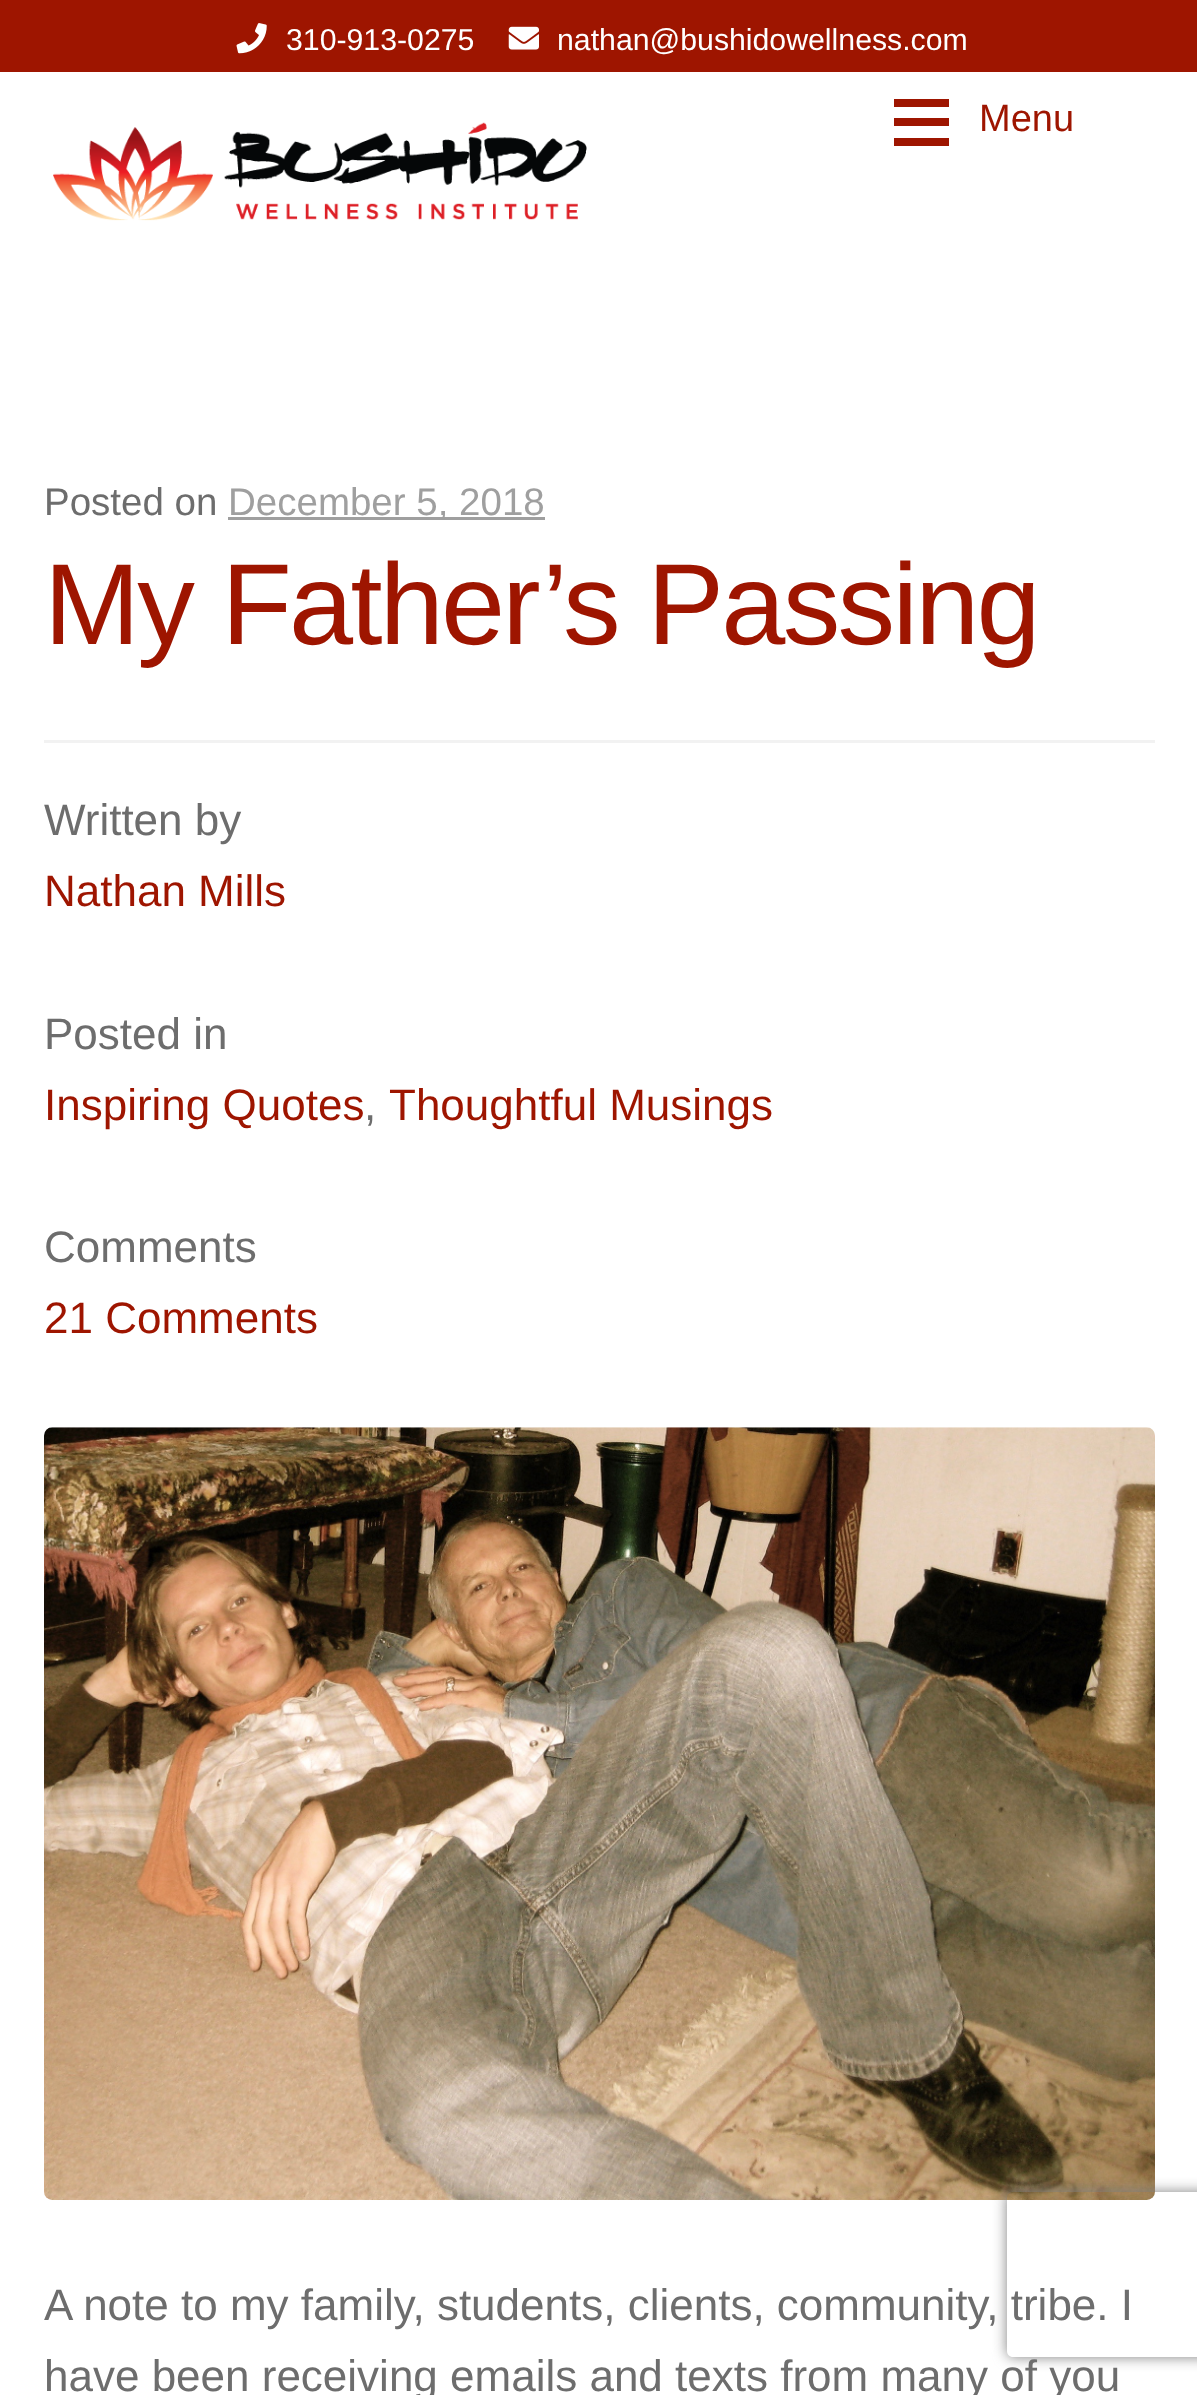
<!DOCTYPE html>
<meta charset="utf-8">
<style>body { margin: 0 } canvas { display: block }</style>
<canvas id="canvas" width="1197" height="2395"></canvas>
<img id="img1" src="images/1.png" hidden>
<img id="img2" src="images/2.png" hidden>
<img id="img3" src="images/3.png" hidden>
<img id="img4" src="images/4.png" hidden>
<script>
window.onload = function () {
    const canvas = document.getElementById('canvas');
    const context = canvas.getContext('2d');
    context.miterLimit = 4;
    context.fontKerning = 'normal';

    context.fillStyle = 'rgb(255, 255, 255)';
    context.fillRect(0, 0, 1197, 2395);
    context.fillStyle = 'rgb(158, 21, 0)';
    context.fillRect(0, 0, 1197, 72);
    context.drawImage(document.getElementById('img1'), 236, 23, 31, 31);
    context.drawImage(document.getElementById('img2'), 508, 26, 31, 24);
    context.fillRect(894, 99, 55, 8);
    context.fillRect(894, 118, 55, 8);
    context.fillRect(894, 138, 55, 8);
    context.drawImage(document.getElementById('img3'), 53, 122, 534, 99);
    context.fillStyle = 'rgb(242, 242, 242)';
    context.fillRect(44, 740, 1111, 3);
    context.fillStyle = 'rgb(159, 159, 159)';
    context.fillRect(228, 517, 317, 3);
    context.drawImage(document.getElementById('img4'), 44, 1427, 1111, 773);
    context.save();
    context.beginPath();
    context.moveTo(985, 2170);
    context.lineTo(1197, 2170);
    context.lineTo(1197, 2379);
    context.lineTo(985, 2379);
    context.closePath();
    context.moveTo(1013, 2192);
    context.lineTo(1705, 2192);
    context.bezierCurveTo(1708.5, 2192, 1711, 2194.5, 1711, 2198);
    context.lineTo(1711, 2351);
    context.bezierCurveTo(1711, 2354.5, 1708.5, 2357, 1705, 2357);
    context.lineTo(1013, 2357);
    context.bezierCurveTo(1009.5, 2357, 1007, 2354.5, 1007, 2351);
    context.lineTo(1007, 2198);
    context.bezierCurveTo(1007, 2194.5, 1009.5, 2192, 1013, 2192);
    context.closePath();
    context.clip('evenodd');
    context.fillStyle = 'rgb(128, 128, 128)';
    context.filter = 'blur(7px)';
    context.beginPath();
    context.roundRect(1007, 2192, 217, 165, 6);
    context.fill();
    context.filter = 'none';
    context.restore();
    context.font = '30.25px Liberation Sans';
    context.fillStyle = 'rgb(255, 255, 255)';
    context.fillText('310-913-0275', 286, 50);
    context.fillText('nathan@bushidowellness.com', 557, 50);
    context.font = '38px Liberation Sans';
    context.fillStyle = 'rgb(158, 21, 0)';
    context.fillText('Menu', 979, 131);
    context.font = '38.5px Liberation Sans';
    context.fillStyle = 'rgb(109, 109, 109)';
    context.fillText('Posted on', 44, 515);
    context.fillStyle = 'rgb(159, 159, 159)';
    context.fillText('December 5, 2018', 228, 515);
    context.letterSpacing = '-2.75px';
    context.font = '115.25px Liberation Sans';
    context.fillStyle = 'rgb(158, 21, 0)';
    context.fillText('My Father’s Passing', 44, 644);
    context.letterSpacing = '0px';
    context.font = '44px Liberation Sans';
    context.fillStyle = 'rgb(109, 109, 109)';
    context.fillText('Written by', 44, 835);
    context.fillStyle = 'rgb(158, 21, 0)';
    context.fillText('Nathan Mills', 44, 906);
    context.fillStyle = 'rgb(109, 109, 109)';
    context.fillText('Posted in', 44, 1049);
    context.fillStyle = 'rgb(158, 21, 0)';
    context.fillText('Inspiring Quotes', 44, 1120);
    context.fillStyle = 'rgb(109, 109, 109)';
    context.fillText(',', 364, 1120);
    context.fillStyle = 'rgb(158, 21, 0)';
    context.fillText('Thoughtful Musings', 389, 1120);
    context.fillStyle = 'rgb(109, 109, 109)';
    context.fillText('Comments', 44, 1262);
    context.fillStyle = 'rgb(158, 21, 0)';
    context.fillText('21 Comments', 44, 1333);
    context.fillStyle = 'rgb(109, 109, 109)';
    context.fillText('A note to my family, students, clients, community, tribe. I', 44, 2320);
    context.fillText('have been receiving emails and texts from many of you', 44, 2391);
};
</script>
